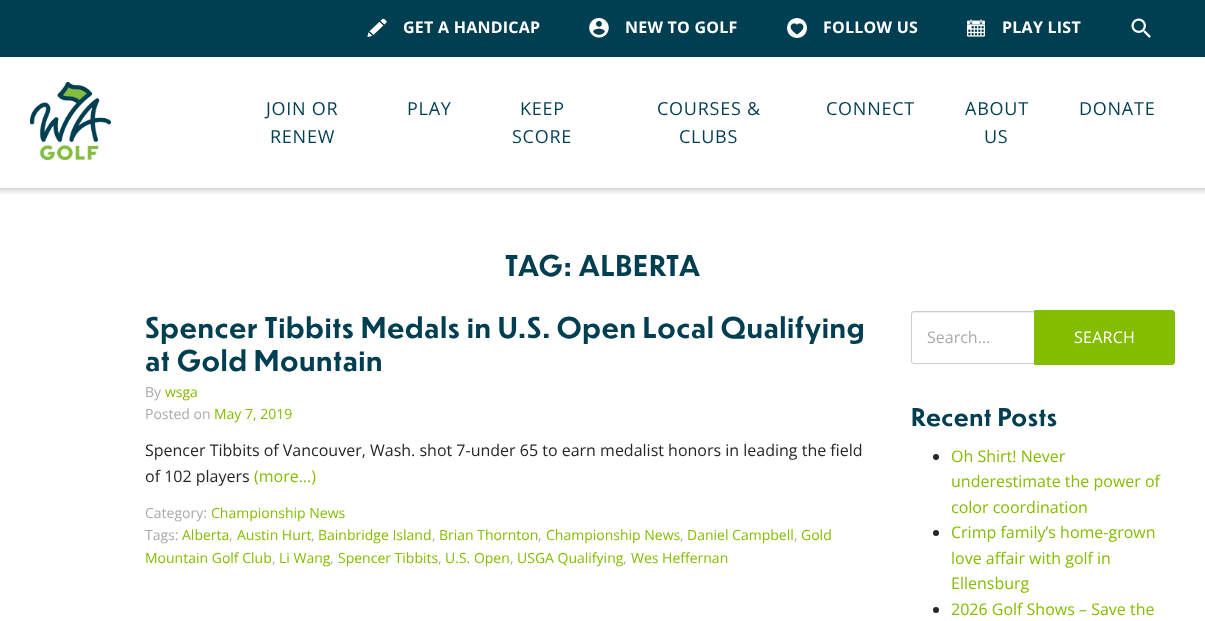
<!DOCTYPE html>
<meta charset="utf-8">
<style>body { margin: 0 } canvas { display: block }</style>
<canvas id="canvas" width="1205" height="621"></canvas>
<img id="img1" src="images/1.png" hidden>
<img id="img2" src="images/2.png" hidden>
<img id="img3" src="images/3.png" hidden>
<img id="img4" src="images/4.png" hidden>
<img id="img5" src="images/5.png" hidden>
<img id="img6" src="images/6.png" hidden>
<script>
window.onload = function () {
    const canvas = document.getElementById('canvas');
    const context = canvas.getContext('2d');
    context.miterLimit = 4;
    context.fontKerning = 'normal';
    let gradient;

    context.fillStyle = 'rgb(255, 255, 255)';
    context.fillRect(0, 0, 1205, 621);
    context.fillStyle = 'rgb(0, 62, 81)';
    context.fillRect(0, 0, 1205, 57);
    context.drawImage(document.getElementById('img1'), 367, 18, 20, 19);
    context.drawImage(document.getElementById('img2'), 589, 18, 20, 20);
    context.drawImage(document.getElementById('img3'), 787, 18, 20, 20);
    context.drawImage(document.getElementById('img4'), 967, 19, 18, 18);
    context.drawImage(document.getElementById('img5'), 1131, 18, 20, 20);
    context.drawImage(document.getElementById('img6'), 30, 82, 81, 78);
    gradient = context.createLinearGradient(603, 188, 603, 195);
    gradient.addColorStop(0, 'rgb(214, 214, 214)');
    gradient.addColorStop(1, 'rgb(255, 255, 255)');
    context.fillStyle = gradient;
    context.fillRect(0, 188, 1205, 7);
    context.fillStyle = 'rgb(236, 236, 236)';
    context.beginPath();
    context.moveTo(914, 313);
    context.lineTo(1034, 313);
    context.lineTo(1034, 312);
    context.lineTo(914, 312);
    context.bezierCurveTo(912, 312, 912, 314, 912, 315);
    context.bezierCurveTo(912, 314, 913, 313, 914, 313);
    context.closePath();
    context.fill();
    context.beginPath();
    context.roundRect(911.5, 311.5, 123, 52, [2.5, 0, 0, 2.5]);
    context.strokeStyle = 'rgb(204, 204, 204)';
    context.stroke();
    context.fillStyle = 'rgb(132, 189, 0)';
    context.beginPath();
    context.roundRect(1034.5, 310.5, 140, 54, [0, 2.5, 2.5, 0]);
    context.fill();
    context.strokeStyle = 'rgb(132, 189, 0)';
    context.stroke();
    context.fillStyle = 'rgb(38, 38, 38)';
    context.beginPath();
    context.arc(936, 457, 3, 0, 2 * Math.PI);
    context.fill();
    context.beginPath();
    context.arc(936, 533, 3, 0, 2 * Math.PI);
    context.fill();
    context.beginPath();
    context.arc(936, 610, 3, 0, 2 * Math.PI);
    context.fill();
    context.letterSpacing = '0.25px';
    context.font = 'bold 16px Open Sans';
    context.fillStyle = 'rgb(255, 255, 255)';
    context.fillText('GET A HANDICAP', 403, 33);
    context.fillText('NEW TO GOLF', 625, 33);
    context.fillText('FOLLOW US', 823, 33);
    context.fillText('PLAY LIST', 1002, 33);
    context.letterSpacing = '0.75px';
    context.font = '18px Open Sans';
    context.fillStyle = 'rgb(0, 62, 81)';
    context.fillText('JOIN OR', 266, 115);
    context.fillText('RENEW', 270, 143);
    context.fillText('PLAY', 407, 115);
    context.fillText('KEEP', 520, 115);
    context.fillText('SCORE', 512, 143);
    context.fillText('COURSES &', 657, 115);
    context.fillText('CLUBS', 679, 143);
    context.fillText('CONNECT', 826, 115);
    context.fillText('ABOUT', 965, 115);
    context.fillText('US', 984, 143);
    context.fillText('DONATE', 1079, 115);
    context.letterSpacing = '0.55px';
    context.font = 'bold 28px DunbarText';
    context.fillText('TAG: ALBERTA', 505, 276);
    context.fillText('Spencer Tibbits Medals in U.S. Open Local Qualifying', 145, 338);
    context.fillText('at Gold Mountain', 145, 371);
    context.letterSpacing = '0px';
    context.font = '14px Open Sans';
    context.fillStyle = 'rgb(170, 170, 170)';
    context.fillText('By', 145, 397);
    context.fillStyle = 'rgb(132, 189, 0)';
    context.fillText('wsga', 165, 397);
    context.fillStyle = 'rgb(170, 170, 170)';
    context.fillText('Posted on', 145, 419);
    context.fillStyle = 'rgb(132, 189, 0)';
    context.fillText('May 7, 2019', 214, 419);
    context.font = '16px Open Sans';
    context.fillStyle = 'rgb(38, 38, 38)';
    context.fillText('Spencer Tibbits of Vancouver, Wash. shot 7-under 65 to earn medalist honors in leading the field', 145, 456);
    context.fillText('of 102 players', 145, 482);
    context.fillStyle = 'rgb(132, 189, 0)';
    context.fillText('(more…)', 254, 482);
    context.font = '14px Open Sans';
    context.fillStyle = 'rgb(170, 170, 170)';
    context.fillText('Category:', 145, 518);
    context.fillStyle = 'rgb(132, 189, 0)';
    context.fillText('Championship News', 211, 518);
    context.fillStyle = 'rgb(170, 170, 170)';
    context.fillText('Tags:', 145, 540);
    context.fillStyle = 'rgb(132, 189, 0)';
    context.fillText('Alberta', 182, 540);
    context.fillStyle = 'rgb(170, 170, 170)';
    context.fillText(',', 229, 540);
    context.fillStyle = 'rgb(132, 189, 0)';
    context.fillText('Austin Hurt', 237, 540);
    context.fillStyle = 'rgb(170, 170, 170)';
    context.fillText(',', 311, 540);
    context.fillStyle = 'rgb(132, 189, 0)';
    context.fillText('Bainbridge Island', 318, 540);
    context.fillStyle = 'rgb(170, 170, 170)';
    context.fillText(',', 432, 540);
    context.fillStyle = 'rgb(132, 189, 0)';
    context.fillText('Brian Thornton', 439, 540);
    context.fillStyle = 'rgb(170, 170, 170)';
    context.fillText(',', 538, 540);
    context.fillStyle = 'rgb(132, 189, 0)';
    context.fillText('Championship News', 546, 540);
    context.fillStyle = 'rgb(170, 170, 170)';
    context.fillText(',', 680, 540);
    context.fillStyle = 'rgb(132, 189, 0)';
    context.fillText('Daniel Campbell', 687, 540);
    context.fillStyle = 'rgb(170, 170, 170)';
    context.fillText(',', 794, 540);
    context.fillStyle = 'rgb(132, 189, 0)';
    context.fillText('Gold', 801, 540);
    context.fillText('Mountain Golf Club', 145, 563);
    context.fillStyle = 'rgb(170, 170, 170)';
    context.fillText(',', 272, 563);
    context.fillStyle = 'rgb(132, 189, 0)';
    context.fillText('Li Wang', 279, 563);
    context.fillStyle = 'rgb(170, 170, 170)';
    context.fillText(',', 330, 563);
    context.fillStyle = 'rgb(132, 189, 0)';
    context.fillText('Spencer Tibbits', 338, 563);
    context.fillStyle = 'rgb(170, 170, 170)';
    context.fillText(',', 438, 563);
    context.fillStyle = 'rgb(132, 189, 0)';
    context.fillText('U.S. Open', 445, 563);
    context.fillStyle = 'rgb(170, 170, 170)';
    context.fillText(',', 510, 563);
    context.fillStyle = 'rgb(132, 189, 0)';
    context.fillText('USGA Qualifying', 517, 563);
    context.fillStyle = 'rgb(170, 170, 170)';
    context.fillText(',', 623, 563);
    context.fillStyle = 'rgb(132, 189, 0)';
    context.fillText('Wes Heffernan', 631, 563);
    context.font = '16px Open Sans';
    context.fillStyle = 'rgb(170, 170, 170)';
    context.fillText('Search…', 927, 343);
    context.letterSpacing = '0.25px';
    context.fillStyle = 'rgb(255, 255, 255)';
    context.fillText('SEARCH', 1074, 343);
    context.letterSpacing = '0.5px';
    context.font = 'bold 24px DunbarText';
    context.fillStyle = 'rgb(0, 62, 81)';
    context.fillText('Recent Posts', 911, 426);
    context.letterSpacing = '0px';
    context.font = '16px Open Sans';
    context.fillStyle = 'rgb(132, 189, 0)';
    context.fillText('Oh Shirt! Never', 951, 462);
    context.fillText('underestimate the power of', 951, 487);
    context.fillText('color coordination', 951, 513);
    context.fillText('Crimp family’s home-grown', 951, 538);
    context.fillText('love affair with golf in', 951, 564);
    context.fillText('Ellensburg', 951, 589);
    context.fillText('2026 Golf Shows – Save the', 951, 615);
};
</script>
